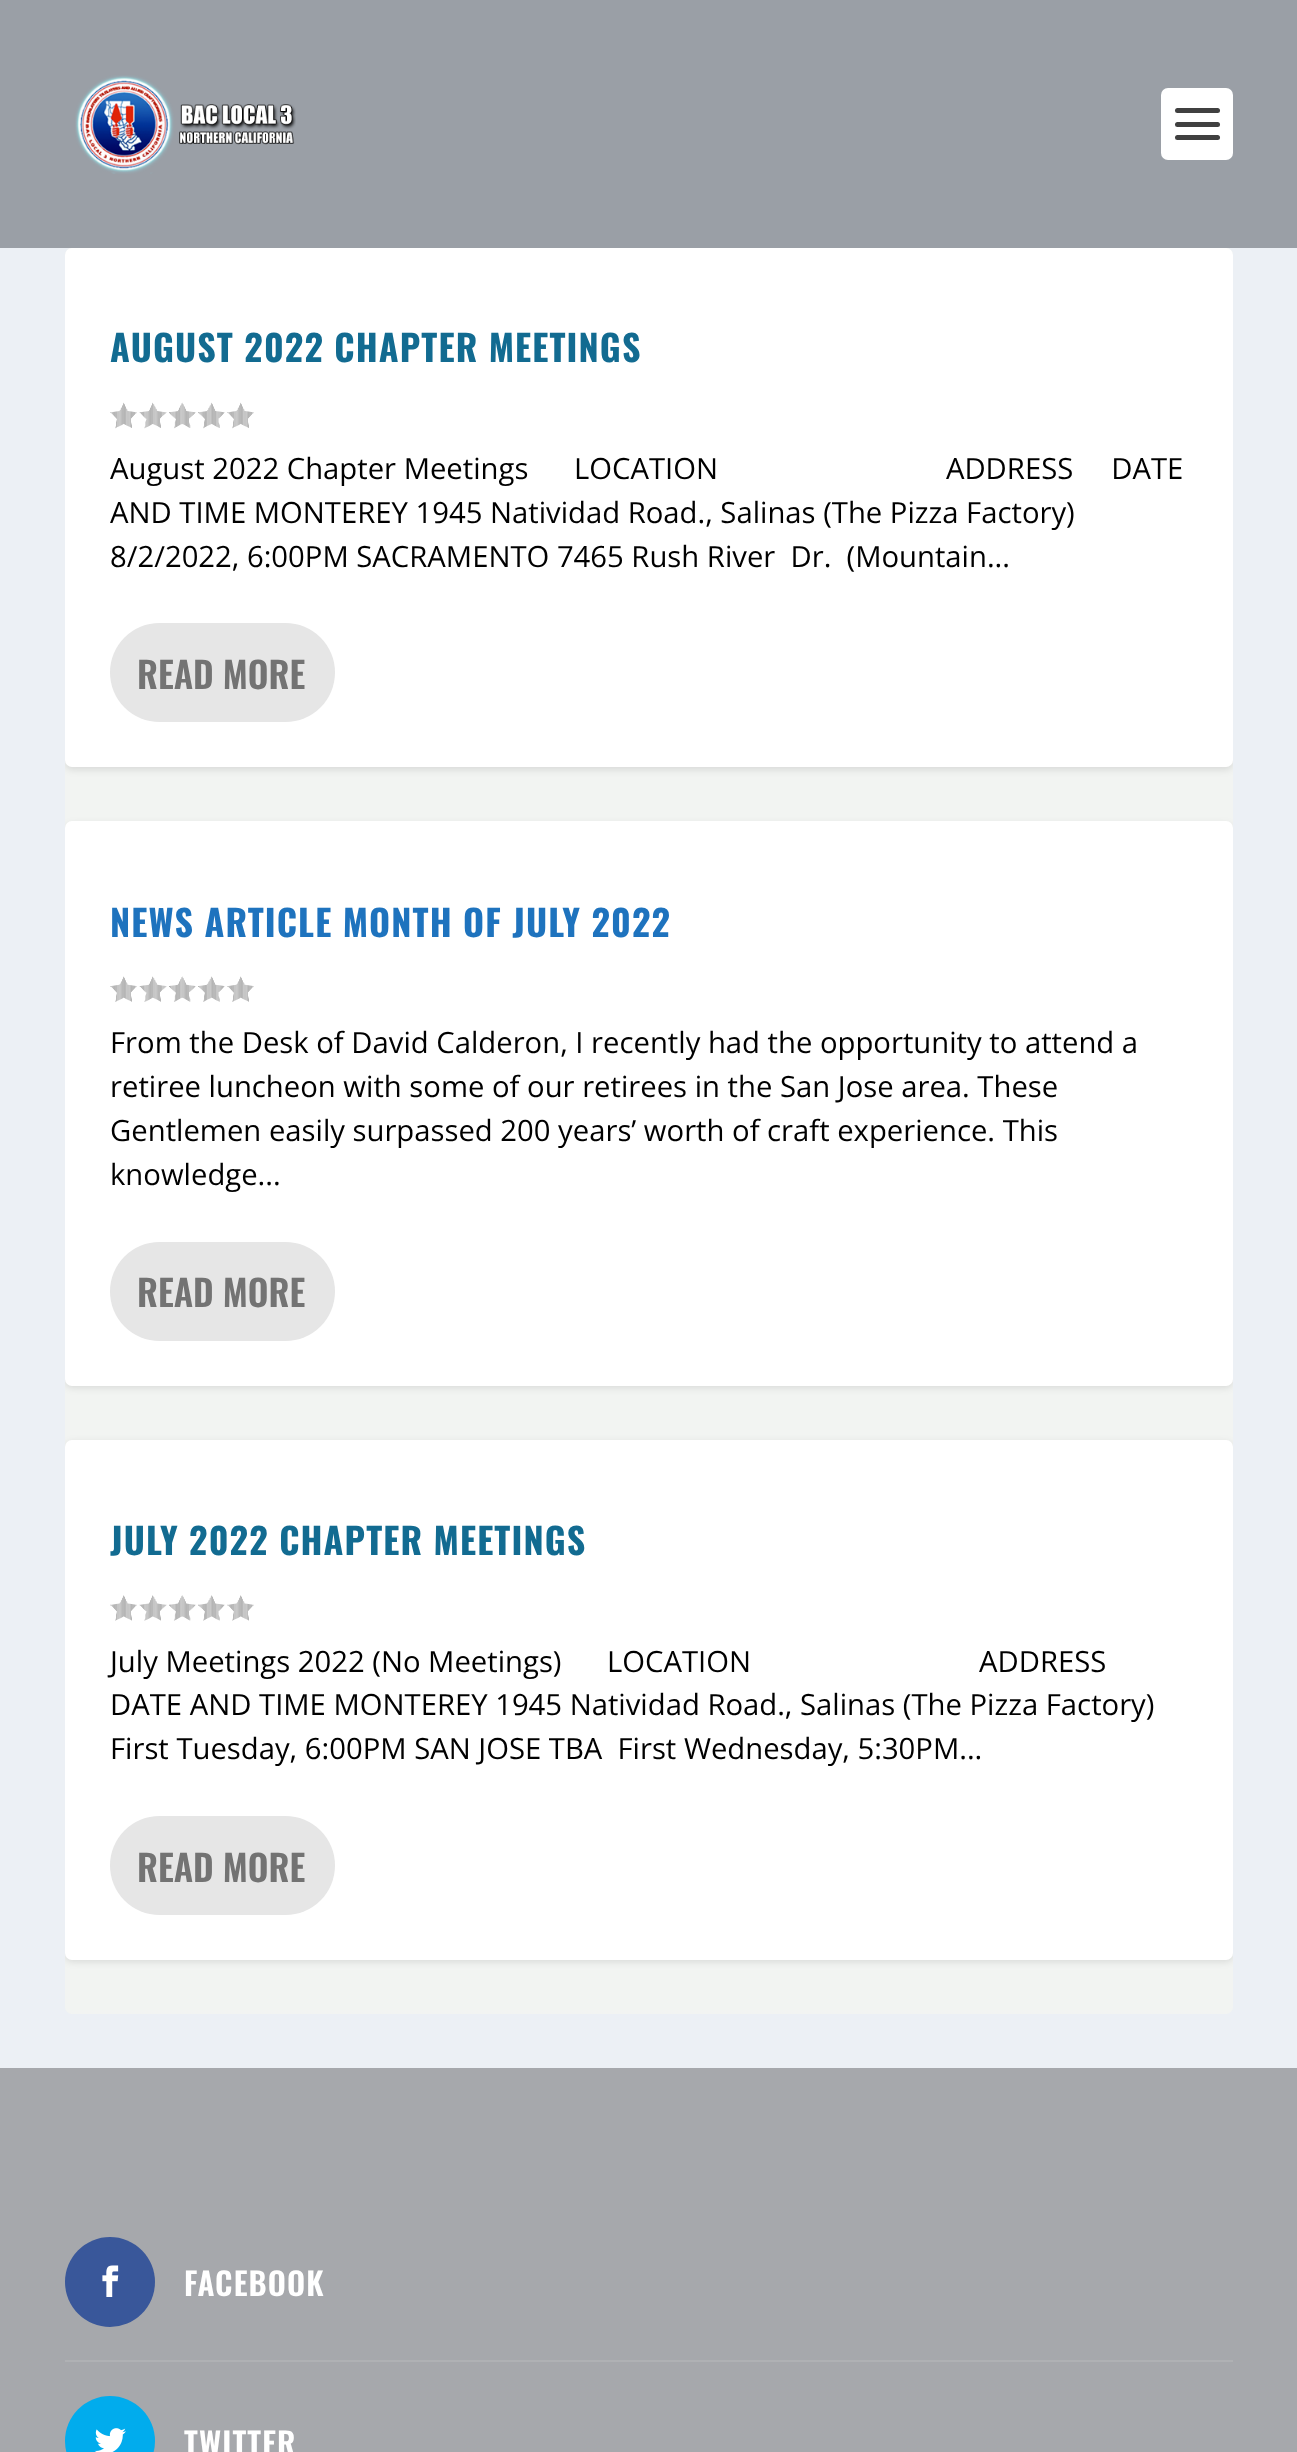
<!DOCTYPE html>
<meta charset="utf-8">
<style>body { margin: 0 } canvas { display: block }</style>
<canvas id="canvas" width="1297" height="2452"></canvas>
<img id="img1" src="images/1.png" hidden>
<img id="img2" src="images/2.png" hidden>
<img id="img3" src="images/3.png" hidden>
<img id="img4" src="images/4.png" hidden>
<img id="img5" src="images/5.png" hidden>
<img id="img6" src="images/6.png" hidden>
<img id="img7" src="images/7.png" hidden>
<img id="img8" src="images/8.png" hidden>
<img id="img9" src="images/9.png" hidden>
<img id="img10" src="images/10.png" hidden>
<img id="img11" src="images/11.png" hidden>
<img id="img12" src="images/12.png" hidden>
<img id="img13" src="images/13.png" hidden>
<img id="img14" src="images/14.png" hidden>
<img id="img15" src="images/15.png" hidden>
<script>
window.onload = function () {
    const canvas = document.getElementById('canvas');
    const context = canvas.getContext('2d');
    context.miterLimit = 4;
    context.fontKerning = 'normal';

    context.fillStyle = 'rgb(236, 240, 245)';
    context.fillRect(0, 0, 1297, 2452);
    context.fillStyle = 'rgb(242, 244, 242)';
    context.beginPath();
    context.roundRect(65, 248, 1168, 1766, 7);
    context.fill();
    context.save();
    context.beginPath();
    context.roundRect(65, 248, 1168, 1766, 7);
    context.clip();
    context.fillStyle = 'rgba(0, 0, 0, 0.1)';
    context.filter = 'blur(3.5px)';
    context.beginPath();
    context.roundRect(65, 250, 1168, 520, 7);
    context.fill();
    context.filter = 'none';
    context.restore();
    context.fillStyle = 'rgb(154, 159, 166)';
    context.fillRect(0, 0, 1297, 248);
    context.drawImage(document.getElementById('img1'), 75, 75, 221, 99);
    context.fillStyle = 'rgb(255, 255, 255)';
    context.beginPath();
    context.roundRect(1161, 88, 72, 72, 7);
    context.fill();
    context.fillStyle = 'rgb(64, 64, 64)';
    context.beginPath();
    context.roundRect(1175, 108, 45, 5, 2.5);
    context.fill();
    context.beginPath();
    context.roundRect(1175, 122, 45, 5, 2.5);
    context.fill();
    context.beginPath();
    context.roundRect(1175, 135, 45, 5, 2.5);
    context.fill();
    context.fillStyle = 'rgb(255, 255, 255)';
    context.beginPath();
    context.roundRect(65, 248, 1168, 519, 7);
    context.fill();
    context.drawImage(document.getElementById('img2'), 110, 402, 27, 27);
    context.drawImage(document.getElementById('img3'), 139, 402, 28, 27);
    context.drawImage(document.getElementById('img4'), 169, 402, 27, 27);
    context.drawImage(document.getElementById('img5'), 198, 402, 27, 27);
    context.drawImage(document.getElementById('img2'), 227, 402, 27, 27);
    context.fillStyle = 'rgb(230, 230, 230)';
    context.beginPath();
    context.roundRect(110, 623, 225, 99, 49.5);
    context.fill();
    context.save();
    context.beginPath();
    context.roundRect(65, 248, 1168, 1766, 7);
    context.clip();
    context.fillStyle = 'rgba(0, 0, 0, 0.1)';
    context.filter = 'blur(3.5px)';
    context.beginPath();
    context.roundRect(65, 824, 1168, 564, 7);
    context.fill();
    context.filter = 'none';
    context.restore();
    context.fillStyle = 'rgb(255, 255, 255)';
    context.beginPath();
    context.roundRect(65, 821, 1168, 565, 7);
    context.fill();
    context.drawImage(document.getElementById('img6'), 110, 976, 27, 26);
    context.drawImage(document.getElementById('img7'), 139, 976, 28, 26);
    context.drawImage(document.getElementById('img8'), 169, 976, 27, 26);
    context.drawImage(document.getElementById('img9'), 198, 976, 27, 26);
    context.drawImage(document.getElementById('img6'), 227, 976, 27, 26);
    context.fillStyle = 'rgb(230, 230, 230)';
    context.beginPath();
    context.roundRect(110, 1242, 225, 99, 49.5);
    context.fill();
    context.save();
    context.beginPath();
    context.roundRect(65, 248, 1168, 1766, 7);
    context.clip();
    context.fillStyle = 'rgba(0, 0, 0, 0.1)';
    context.filter = 'blur(3.5px)';
    context.beginPath();
    context.roundRect(65, 1442, 1168, 520, 7);
    context.fill();
    context.filter = 'none';
    context.restore();
    context.fillStyle = 'rgb(255, 255, 255)';
    context.beginPath();
    context.roundRect(65, 1440, 1168, 520, 7);
    context.fill();
    context.drawImage(document.getElementById('img10'), 110, 1595, 27, 26);
    context.drawImage(document.getElementById('img11'), 139, 1595, 28, 26);
    context.drawImage(document.getElementById('img12'), 169, 1595, 27, 26);
    context.drawImage(document.getElementById('img13'), 198, 1595, 27, 26);
    context.drawImage(document.getElementById('img10'), 227, 1595, 27, 26);
    context.fillStyle = 'rgb(230, 230, 230)';
    context.beginPath();
    context.roundRect(110, 1816, 225, 99, 49.5);
    context.fill();
    context.fillStyle = 'rgb(166, 168, 172)';
    context.fillRect(0, 2068, 1297, 384);
    context.fillStyle = 'rgb(175, 177, 180)';
    context.fillRect(65, 2360, 1168, 2);
    context.fillStyle = 'rgb(57, 87, 154)';
    context.beginPath();
    context.arc(110, 2282, 45, 0, 2 * Math.PI);
    context.fill();
    context.drawImage(document.getElementById('img14'), 102, 2265, 17, 32);
    context.fillStyle = 'rgb(1, 172, 237)';
    context.beginPath();
    context.arc(110, 2441, 45, 0, 2 * Math.PI);
    context.fill();
    context.drawImage(document.getElementById('img15'), 94, 2428, 32, 24);
    context.letterSpacing = '1.1px';
    context.font = 'bold 36px Oswald';
    context.fillStyle = 'rgb(18, 107, 145)';
    context.fillText('AUGUST 2022 CHAPTER MEETINGS', 110, 362);
    context.letterSpacing = '0px';
    context.font = '29.25px Open Sans';
    context.fillStyle = 'rgb(0, 0, 0)';
    context.fillText('August 2022 Chapter Meetings      LOCATION                              ADDRESS     DATE', 110, 479);
    context.fillText('AND TIME MONTEREY 1945 Natividad Road., Salinas (The Pizza Factory)', 110, 523);
    context.fillText('8/2/2022, 6:00PM SACRAMENTO 7465 Rush River  Dr.  (Mountain...', 110, 567);
    context.font = '600 36px Oswald';
    context.fillStyle = 'rgb(115, 115, 115)';
    context.fillText('READ MORE', 137, 689);
    context.letterSpacing = '1.1px';
    context.font = 'bold 36px Oswald';
    context.fillStyle = 'rgb(30, 115, 190)';
    context.fillText('NEWS ARTICLE MONTH OF JULY 2022', 110, 937);
    context.letterSpacing = '0px';
    context.font = '29.25px Open Sans';
    context.fillStyle = 'rgb(0, 0, 0)';
    context.fillText('From the Desk of David Calderon, I recently had the opportunity to attend a', 110, 1053);
    context.fillText('retiree luncheon with some of our retirees in the San Jose area. These', 110, 1097);
    context.fillText('Gentlemen easily surpassed 200 years’ worth of craft experience. This', 110, 1141);
    context.fillText('knowledge...', 110, 1185);
    context.font = '600 36px Oswald';
    context.fillStyle = 'rgb(115, 115, 115)';
    context.fillText('READ MORE', 137, 1307);
    context.letterSpacing = '1.1px';
    context.font = 'bold 36px Oswald';
    context.fillStyle = 'rgb(18, 107, 145)';
    context.fillText('JULY 2022 CHAPTER MEETINGS', 110, 1555);
    context.letterSpacing = '0px';
    context.font = '29.25px Open Sans';
    context.fillStyle = 'rgb(0, 0, 0)';
    context.fillText('July Meetings 2022 (No Meetings)      LOCATION                              ADDRESS', 110, 1672);
    context.fillText('DATE AND TIME MONTEREY 1945 Natividad Road., Salinas (The Pizza Factory)', 110, 1715);
    context.fillText('First Tuesday, 6:00PM SAN JOSE TBA  First Wednesday, 5:30PM...', 110, 1759);
    context.font = '600 36px Oswald';
    context.fillStyle = 'rgb(115, 115, 115)';
    context.fillText('READ MORE', 137, 1882);
    context.letterSpacing = '1.1px';
    context.font = '600 31.5px Oswald';
    context.fillStyle = 'rgb(255, 255, 255)';
    context.fillText('FACEBOOK', 184, 2296);
    context.fillText('TWITTER', 184, 2456);
};
</script>
